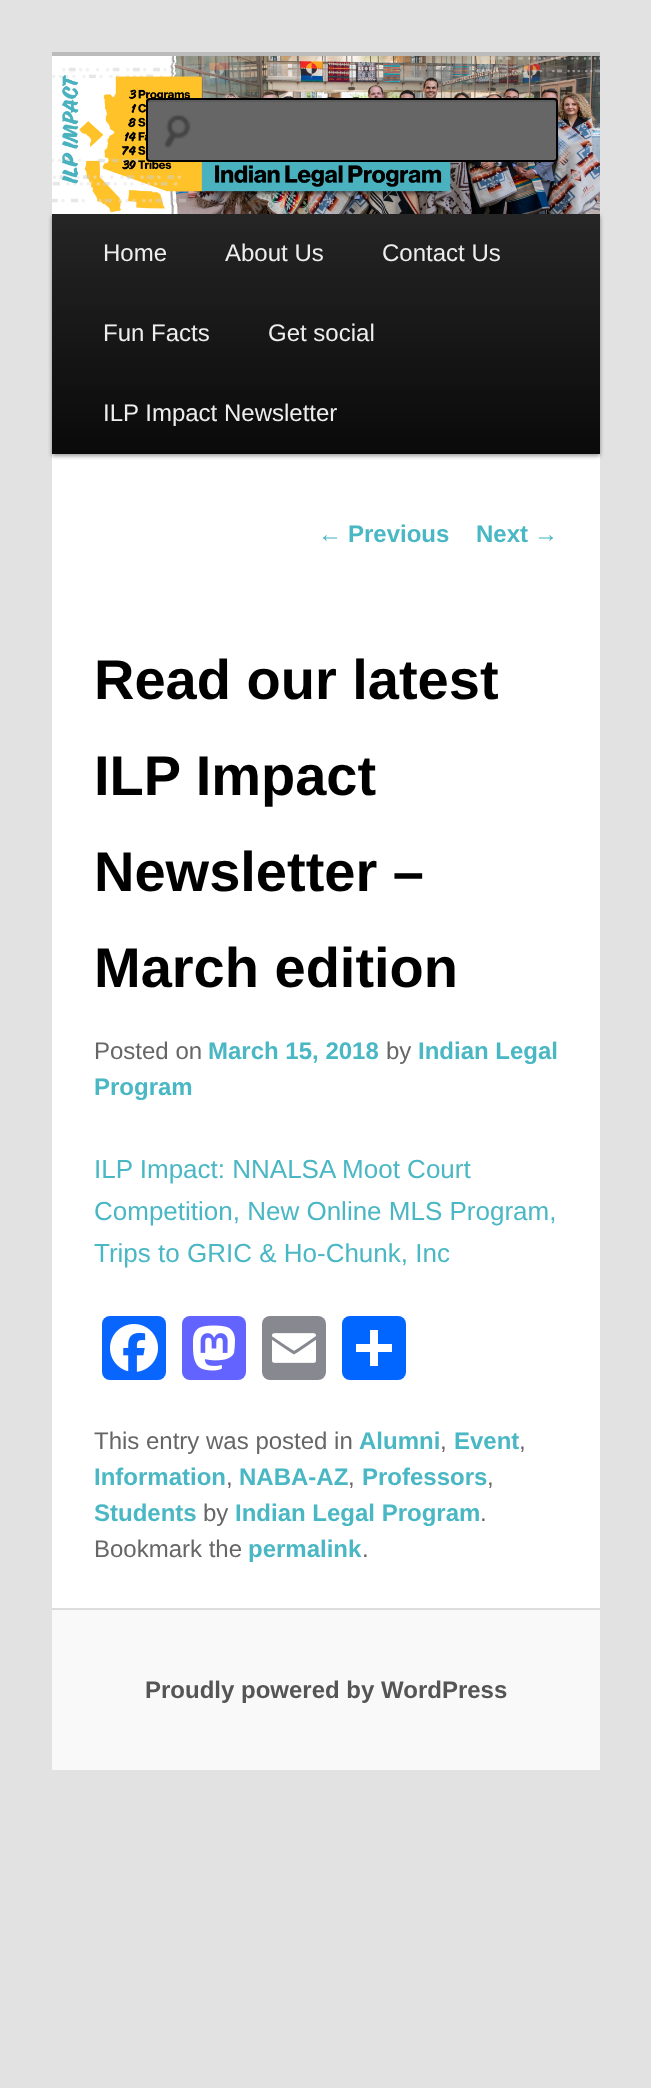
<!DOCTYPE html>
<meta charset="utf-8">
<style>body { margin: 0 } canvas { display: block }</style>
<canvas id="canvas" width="651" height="2088"></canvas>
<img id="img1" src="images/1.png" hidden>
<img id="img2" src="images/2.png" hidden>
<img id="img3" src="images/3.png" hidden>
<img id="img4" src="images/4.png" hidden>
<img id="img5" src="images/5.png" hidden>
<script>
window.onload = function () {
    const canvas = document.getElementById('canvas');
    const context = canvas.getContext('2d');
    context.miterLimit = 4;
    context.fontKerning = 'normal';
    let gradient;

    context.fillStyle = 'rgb(226, 226, 226)';
    context.fillRect(0, 0, 651, 2088);
    context.fillStyle = 'rgb(255, 255, 255)';
    context.fillRect(52, 454, 548, 1154);
    context.fillStyle = 'rgb(187, 187, 187)';
    context.fillRect(52, 52, 548, 4);
    context.fillStyle = 'rgba(0, 0, 0, 0.4)';
    context.filter = 'blur(2px)';
    context.beginPath();
    context.rect(52, 216, 548, 240);
    context.fill();
    context.filter = 'none';
    context.drawImage(document.getElementById('img1'), 52, 56, 548, 158);
    context.fillStyle = 'rgb(102, 102, 102)';
    context.beginPath();
    context.roundRect(146, 98, 412, 64, 4);
    context.fill();
    context.drawImage(document.getElementById('img2'), 164, 114, 27, 34);
    context.fillStyle = 'rgb(92, 92, 92)';
    context.beginPath();
    context.moveTo(150, 102);
    context.lineTo(554, 102);
    context.bezierCurveTo(555, 102, 556, 103, 556, 104);
    context.lineTo(556, 101);
    context.lineTo(554, 100);
    context.lineTo(150, 100);
    context.bezierCurveTo(148, 100, 148, 102, 148, 104);
    context.bezierCurveTo(148, 103, 149, 102, 150, 102);
    context.closePath();
    context.fill();
    context.beginPath();
    context.roundRect(147, 99, 410, 62, 3);
    context.strokeStyle = 'rgb(0, 0, 0)';
    context.lineWidth = 2;
    context.stroke();
    gradient = context.createLinearGradient(326, 214, 326, 454);
    gradient.addColorStop(0, 'rgb(37, 37, 37)');
    gradient.addColorStop(1, 'rgb(10, 10, 10)');
    context.fillStyle = gradient;
    context.fillRect(52, 214, 548, 240);
    context.fillStyle = 'rgb(8, 102, 255)';
    context.beginPath();
    context.roundRect(102, 1316, 64, 64, 8);
    context.fill();
    context.drawImage(document.getElementById('img3'), 110, 1324, 48, 48);
    context.fillStyle = 'rgb(99, 100, 255)';
    context.beginPath();
    context.roundRect(182, 1316, 64, 64, 8);
    context.fill();
    context.drawImage(document.getElementById('img4'), 193, 1325, 42, 46);
    context.fillStyle = 'rgb(136, 137, 144)';
    context.beginPath();
    context.roundRect(262, 1316, 64, 64, 8);
    context.fill();
    context.drawImage(document.getElementById('img5'), 272, 1333, 44, 30);
    context.fillStyle = 'rgb(1, 102, 255)';
    context.beginPath();
    context.roundRect(342, 1316, 64, 64, 8);
    context.fill();
    context.fillStyle = 'rgb(255, 255, 255)';
    context.fillRect(370, 1330, 8, 36);
    context.fillRect(356, 1344, 36, 8);
    context.fillStyle = 'rgb(249, 249, 249)';
    context.fillRect(52, 1610, 548, 160);
    context.fillStyle = 'rgb(221, 221, 221)';
    context.fillRect(52, 1608, 548, 2);
    context.font = '24px Liberation Sans';
    context.fillStyle = 'rgb(238, 238, 238)';
    context.fillText('Home', 103, 261);
    context.fillText('About Us', 225, 261);
    context.fillText('Contact Us', 382, 261);
    context.fillText('Fun Facts', 103, 341);
    context.fillText('Get social', 268, 341);
    context.fillText('ILP Impact Newsletter', 103, 421);
    context.fillStyle = 'rgb(74, 183, 196)';
    context.fillText('←', 318, 542);
    context.font = 'bold 24px Liberation Sans';
    context.fillText('Previous', 348, 542);
    context.fillText('Next', 476, 542);
    context.font = '24px Liberation Sans';
    context.fillText('→', 534, 542);
    context.font = 'bold 56px Liberation Sans';
    context.fillStyle = 'rgb(0, 0, 0)';
    context.fillText('Read our latest', 94, 699);
    context.fillText('ILP Impact', 94, 795);
    context.fillText('Newsletter –', 94, 891);
    context.fillText('March edition', 94, 987);
    context.font = '24px Liberation Sans';
    context.fillStyle = 'rgb(102, 102, 102)';
    context.fillText('Posted on', 94, 1059);
    context.font = 'bold 24px Liberation Sans';
    context.fillStyle = 'rgb(74, 183, 196)';
    context.fillText('March 15, 2018', 208, 1059);
    context.font = '24px Liberation Sans';
    context.fillStyle = 'rgb(102, 102, 102)';
    context.fillText('by', 386, 1059);
    context.font = 'bold 24px Liberation Sans';
    context.fillStyle = 'rgb(74, 183, 196)';
    context.fillText('Indian Legal', 418, 1059);
    context.fillText('Program', 94, 1095);
    context.font = '26px Liberation Sans';
    context.fillText('ILP Impact: NNALSA Moot Court', 94, 1178);
    context.fillText('Competition, New Online MLS Program,', 94, 1220);
    context.fillText('Trips to GRIC & Ho-Chunk, Inc', 94, 1262);
    context.font = '24px Liberation Sans';
    context.fillStyle = 'rgb(102, 102, 102)';
    context.fillText('This entry was posted in', 94, 1449);
    context.font = 'bold 24px Liberation Sans';
    context.fillStyle = 'rgb(74, 183, 196)';
    context.fillText('Alumni', 359, 1449);
    context.font = '24px Liberation Sans';
    context.fillStyle = 'rgb(102, 102, 102)';
    context.fillText(',', 440, 1449);
    context.font = 'bold 24px Liberation Sans';
    context.fillStyle = 'rgb(74, 183, 196)';
    context.fillText('Event', 454, 1449);
    context.font = '24px Liberation Sans';
    context.fillStyle = 'rgb(102, 102, 102)';
    context.fillText(',', 519, 1449);
    context.font = 'bold 24px Liberation Sans';
    context.fillStyle = 'rgb(74, 183, 196)';
    context.fillText('Information', 94, 1485);
    context.font = '24px Liberation Sans';
    context.fillStyle = 'rgb(102, 102, 102)';
    context.fillText(',', 226, 1485);
    context.font = 'bold 24px Liberation Sans';
    context.fillStyle = 'rgb(74, 183, 196)';
    context.fillText('NABA-AZ', 239, 1485);
    context.font = '24px Liberation Sans';
    context.fillStyle = 'rgb(102, 102, 102)';
    context.fillText(',', 348, 1485);
    context.font = 'bold 24px Liberation Sans';
    context.fillStyle = 'rgb(74, 183, 196)';
    context.fillText('Professors', 362, 1485);
    context.font = '24px Liberation Sans';
    context.fillStyle = 'rgb(102, 102, 102)';
    context.fillText(',', 487, 1485);
    context.font = 'bold 24px Liberation Sans';
    context.fillStyle = 'rgb(74, 183, 196)';
    context.fillText('Students', 94, 1521);
    context.font = '24px Liberation Sans';
    context.fillStyle = 'rgb(102, 102, 102)';
    context.fillText('by', 203, 1521);
    context.font = 'bold 24px Liberation Sans';
    context.fillStyle = 'rgb(74, 183, 196)';
    context.fillText('Indian Legal Program', 235, 1521);
    context.font = '24px Liberation Sans';
    context.fillStyle = 'rgb(102, 102, 102)';
    context.fillText('.', 480, 1521);
    context.fillText('Bookmark the', 94, 1557);
    context.font = 'bold 24px Liberation Sans';
    context.fillStyle = 'rgb(74, 183, 196)';
    context.fillText('permalink', 248, 1557);
    context.font = '24px Liberation Sans';
    context.fillStyle = 'rgb(102, 102, 102)';
    context.fillText('.', 362, 1557);
    context.font = 'bold 24px Liberation Sans';
    context.fillStyle = 'rgb(85, 85, 85)';
    context.fillText('Proudly powered by WordPress', 145, 1698);
};
</script>
